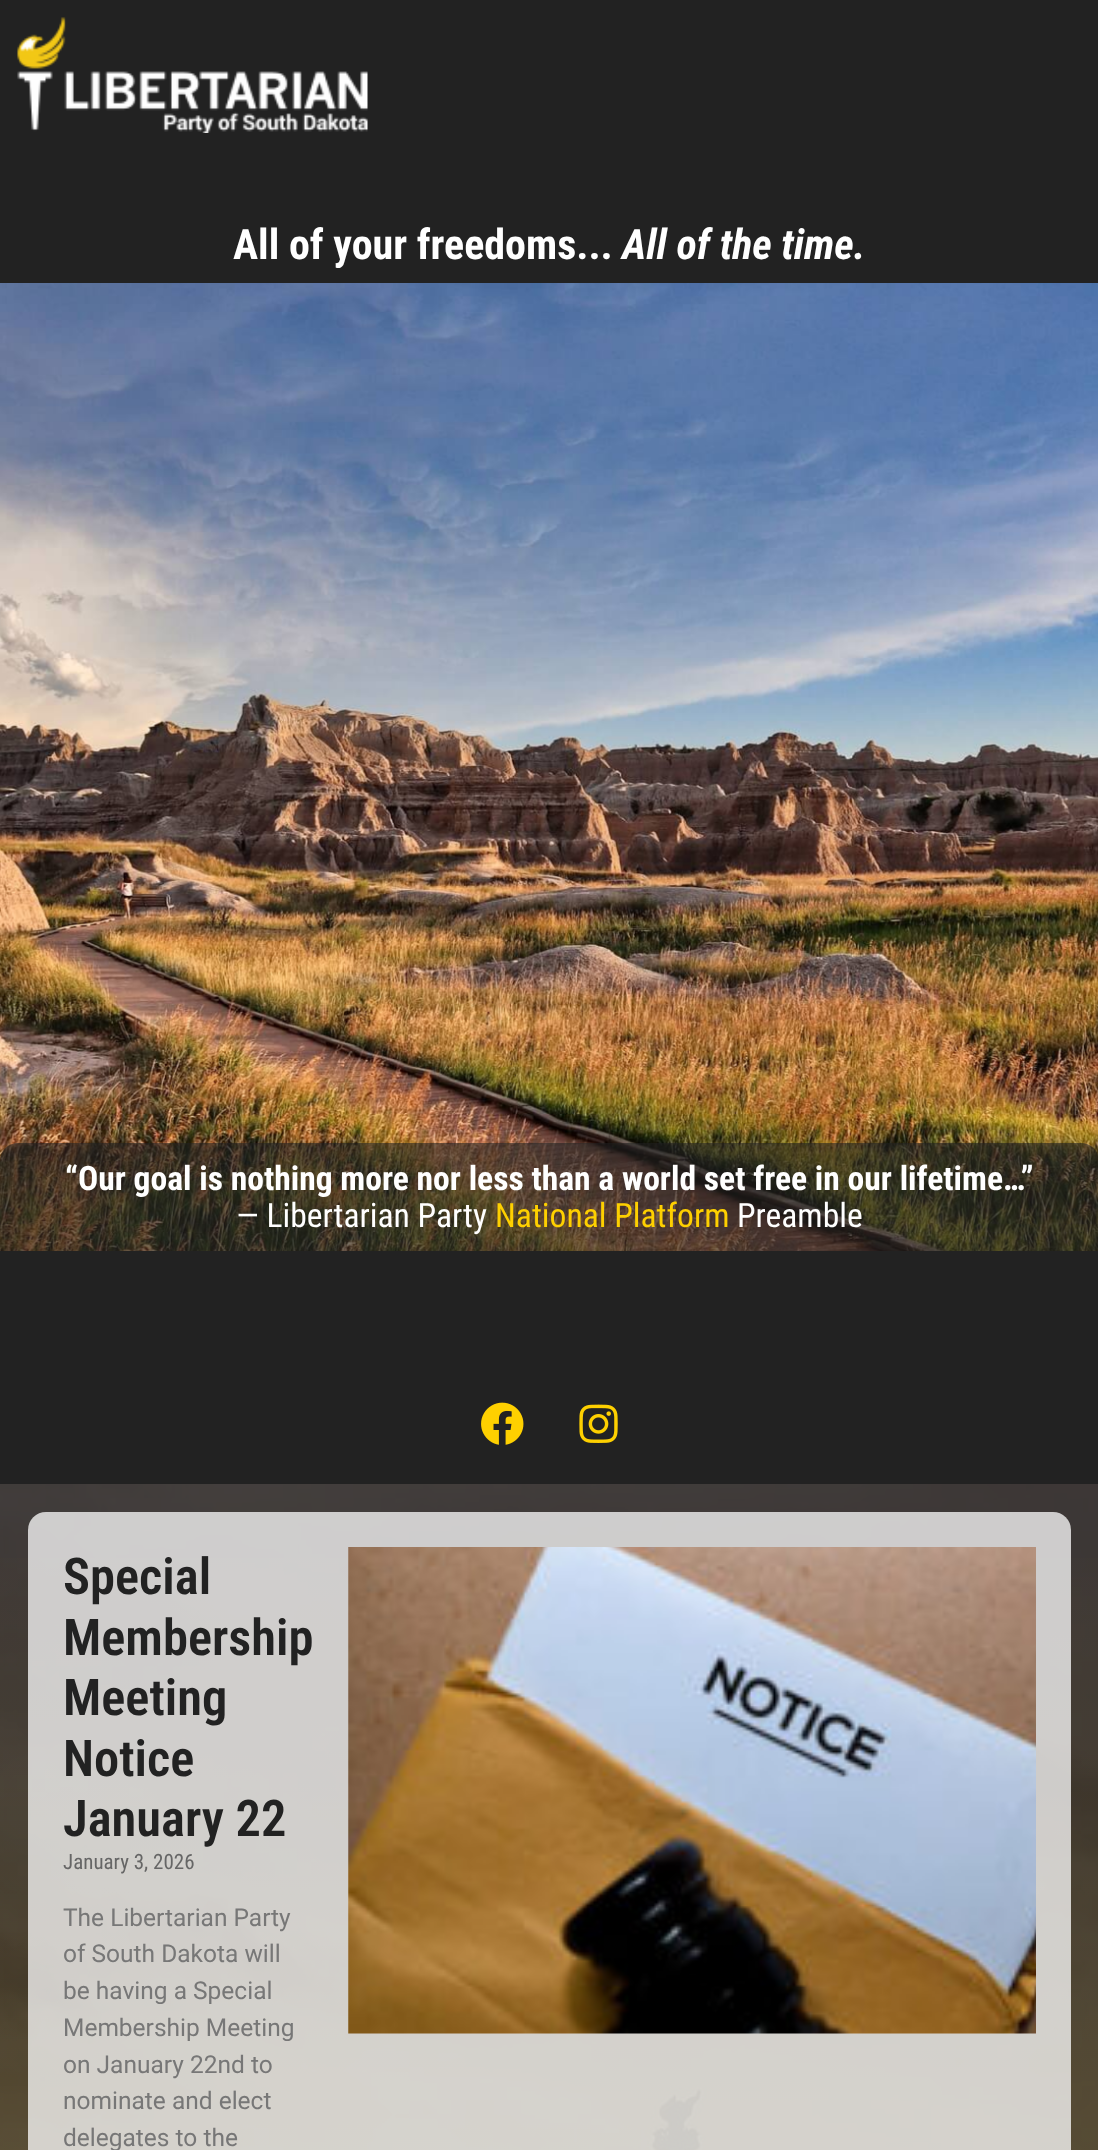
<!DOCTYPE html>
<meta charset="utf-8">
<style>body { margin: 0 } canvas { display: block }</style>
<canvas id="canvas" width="1098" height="2150"></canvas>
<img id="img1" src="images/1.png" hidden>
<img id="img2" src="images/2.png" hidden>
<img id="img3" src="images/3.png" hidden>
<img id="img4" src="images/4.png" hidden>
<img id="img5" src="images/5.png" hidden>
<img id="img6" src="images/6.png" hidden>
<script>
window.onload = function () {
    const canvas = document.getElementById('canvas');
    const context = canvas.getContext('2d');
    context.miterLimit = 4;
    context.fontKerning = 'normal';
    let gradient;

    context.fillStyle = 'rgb(34, 34, 34)';
    context.fillRect(0, 0, 1098, 2150);
    context.drawImage(document.getElementById('img1'), 17, 17, 351, 116);
    context.drawImage(document.getElementById('img2'), 0, 283, 1098, 968);
    context.fillStyle = 'rgba(34, 34, 34, 0.6)';
    context.beginPath();
    context.moveTo(18, 1143);
    context.lineTo(1081, 1143);
    context.bezierCurveTo(1091, 1143, 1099, 1151, 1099, 1161);
    context.lineTo(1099, 1251);
    context.lineTo(0, 1251);
    context.lineTo(0, 1161);
    context.bezierCurveTo(0, 1151, 8, 1143, 18, 1143);
    context.closePath();
    context.fill();
    context.drawImage(document.getElementById('img3'), 481, 1402, 43, 43);
    context.drawImage(document.getElementById('img4'), 579, 1404, 39, 39);
    gradient = context.createLinearGradient(549, 1484, 550, 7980);
    gradient.addColorStop(0, 'rgb(34, 34, 34)');
    gradient.addColorStop(1, 'rgb(254, 208, 0)');
    context.fillStyle = gradient;
    context.fillRect(0, 1558, 1098, 592);
    context.drawImage(document.getElementById('img5'), 0, 1484, 1098, 666);
    context.fillStyle = 'rgba(255, 255, 255, 0.75)';
    context.beginPath();
    context.roundRect(28, 1512, 1043, 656, 18);
    context.fill();
    context.drawImage(document.getElementById('img6'), 348, 1547, 688, 487);
    context.font = 'bold 42px Roboto Condensed';
    context.fillStyle = 'rgb(255, 255, 255)';
    context.fillText('All of your freedoms...', 233, 259);
    context.font = 'italic bold 42px Roboto Condensed';
    context.fillText('All of the time.', 622, 259);
    context.font = 'bold 33.6px Roboto Condensed';
    context.fillText('“Our goal is nothing more nor less than a world set free in our lifetime…”', 65, 1190);
    context.font = '33.6px Roboto Condensed';
    context.fillText('— Libertarian Party', 236, 1227);
    context.fillStyle = 'rgb(254, 208, 0)';
    context.fillText('National Platform', 495, 1227);
    context.fillStyle = 'rgb(255, 255, 255)';
    context.fillText('Preamble', 737, 1227);
    context.font = '600 50.5px Roboto Condensed';
    context.fillStyle = 'rgb(34, 34, 34)';
    context.fillText('Special', 63, 1594);
    context.fillText('Membership', 63, 1655);
    context.fillText('Meeting', 63, 1715);
    context.fillText('Notice', 63, 1776);
    context.fillText('January 22', 63, 1836);
    context.font = '21px Roboto Condensed';
    context.fillStyle = 'rgb(102, 102, 102)';
    context.fillText('January 3, 2026', 63, 1869);
    context.font = '24.5px Roboto';
    context.fillStyle = 'rgb(119, 119, 119)';
    context.fillText('The Libertarian Party', 63, 1926);
    context.fillText('of South Dakota will', 63, 1962);
    context.fillText('be having a Special', 63, 1999);
    context.fillText('Membership Meeting', 63, 2036);
    context.fillText('on January 22nd to', 63, 2073);
    context.fillText('nominate and elect', 63, 2109);
    context.fillText('delegates to the', 63, 2146);
};
</script>
